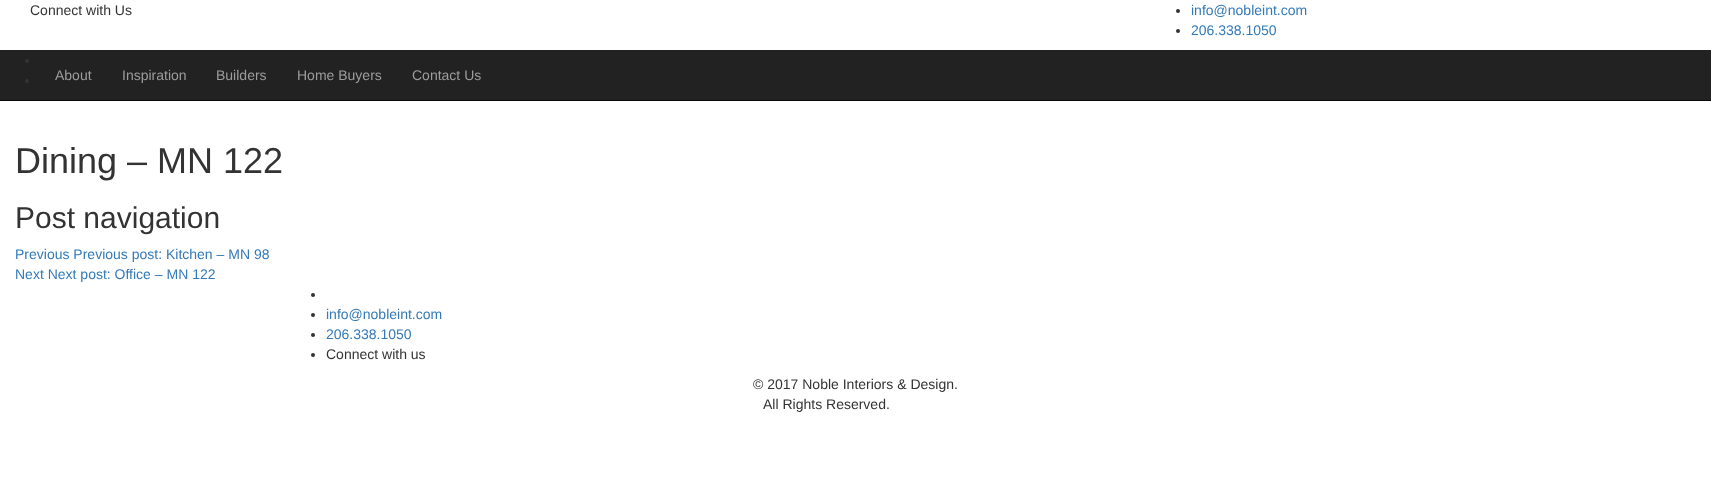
<!DOCTYPE html>
<meta charset="utf-8">
<style>body { margin: 0 } canvas { display: block }</style>
<canvas id="canvas" width="1711" height="477"></canvas>
<script>
window.onload = function () {
    const canvas = document.getElementById('canvas');
    const context = canvas.getContext('2d');
    context.miterLimit = 4;
    context.fontKerning = 'normal';

    context.fillStyle = 'rgb(255, 255, 255)';
    context.fillRect(0, 0, 1711, 477);
    context.fillStyle = 'rgb(51, 51, 51)';
    context.beginPath();
    context.arc(1178, 11, 2, 0, 2 * Math.PI);
    context.fill();
    context.beginPath();
    context.arc(1178, 31, 2, 0, 2 * Math.PI);
    context.fill();
    context.fillStyle = 'rgb(34, 34, 34)';
    context.fillRect(0, 50, 1711, 50);
    context.fillStyle = 'rgb(8, 8, 8)';
    context.fillRect(0, 100, 1711, 1);
    context.fillStyle = 'rgb(51, 51, 51)';
    context.beginPath();
    context.arc(27, 61, 2, 0, 2 * Math.PI);
    context.fill();
    context.beginPath();
    context.arc(27, 81, 2, 0, 2 * Math.PI);
    context.fill();
    context.beginPath();
    context.arc(313, 295, 2, 0, 2 * Math.PI);
    context.fill();
    context.beginPath();
    context.arc(313, 315, 2, 0, 2 * Math.PI);
    context.fill();
    context.beginPath();
    context.arc(313, 335, 2, 0, 2 * Math.PI);
    context.fill();
    context.beginPath();
    context.arc(313, 355, 2, 0, 2 * Math.PI);
    context.fill();
    context.font = '14px Liberation Sans';
    context.fillText('Connect with Us', 30, 15);
    context.fillStyle = 'rgb(51, 122, 183)';
    context.fillText('info@nobleint.com', 1191, 15);
    context.fillText('206.338.1050', 1191, 35);
    context.fillStyle = 'rgb(157, 157, 157)';
    context.fillText('About', 55, 80);
    context.fillText('Inspiration', 122, 80);
    context.fillText('Builders', 216, 80);
    context.fillText('Home Buyers', 297, 80);
    context.fillText('Contact Us', 412, 80);
    context.font = '36px Liberation Sans';
    context.fillStyle = 'rgb(51, 51, 51)';
    context.fillText('Dining – MN 122', 15, 173);
    context.font = '30px Liberation Sans';
    context.fillText('Post navigation', 15, 228);
    context.font = '14px Liberation Sans';
    context.fillStyle = 'rgb(51, 122, 183)';
    context.fillText('Previous Previous post: Kitchen – MN 98', 15, 259);
    context.fillText('Next Next post: Office – MN 122', 15, 279);
    context.fillText('info@nobleint.com', 326, 319);
    context.fillText('206.338.1050', 326, 339);
    context.fillStyle = 'rgb(51, 51, 51)';
    context.fillText('Connect with us', 326, 359);
    context.fillText('© 2017 Noble Interiors & Design.', 753, 389);
    context.fillText('All Rights Reserved.', 763, 409);
};
</script>
